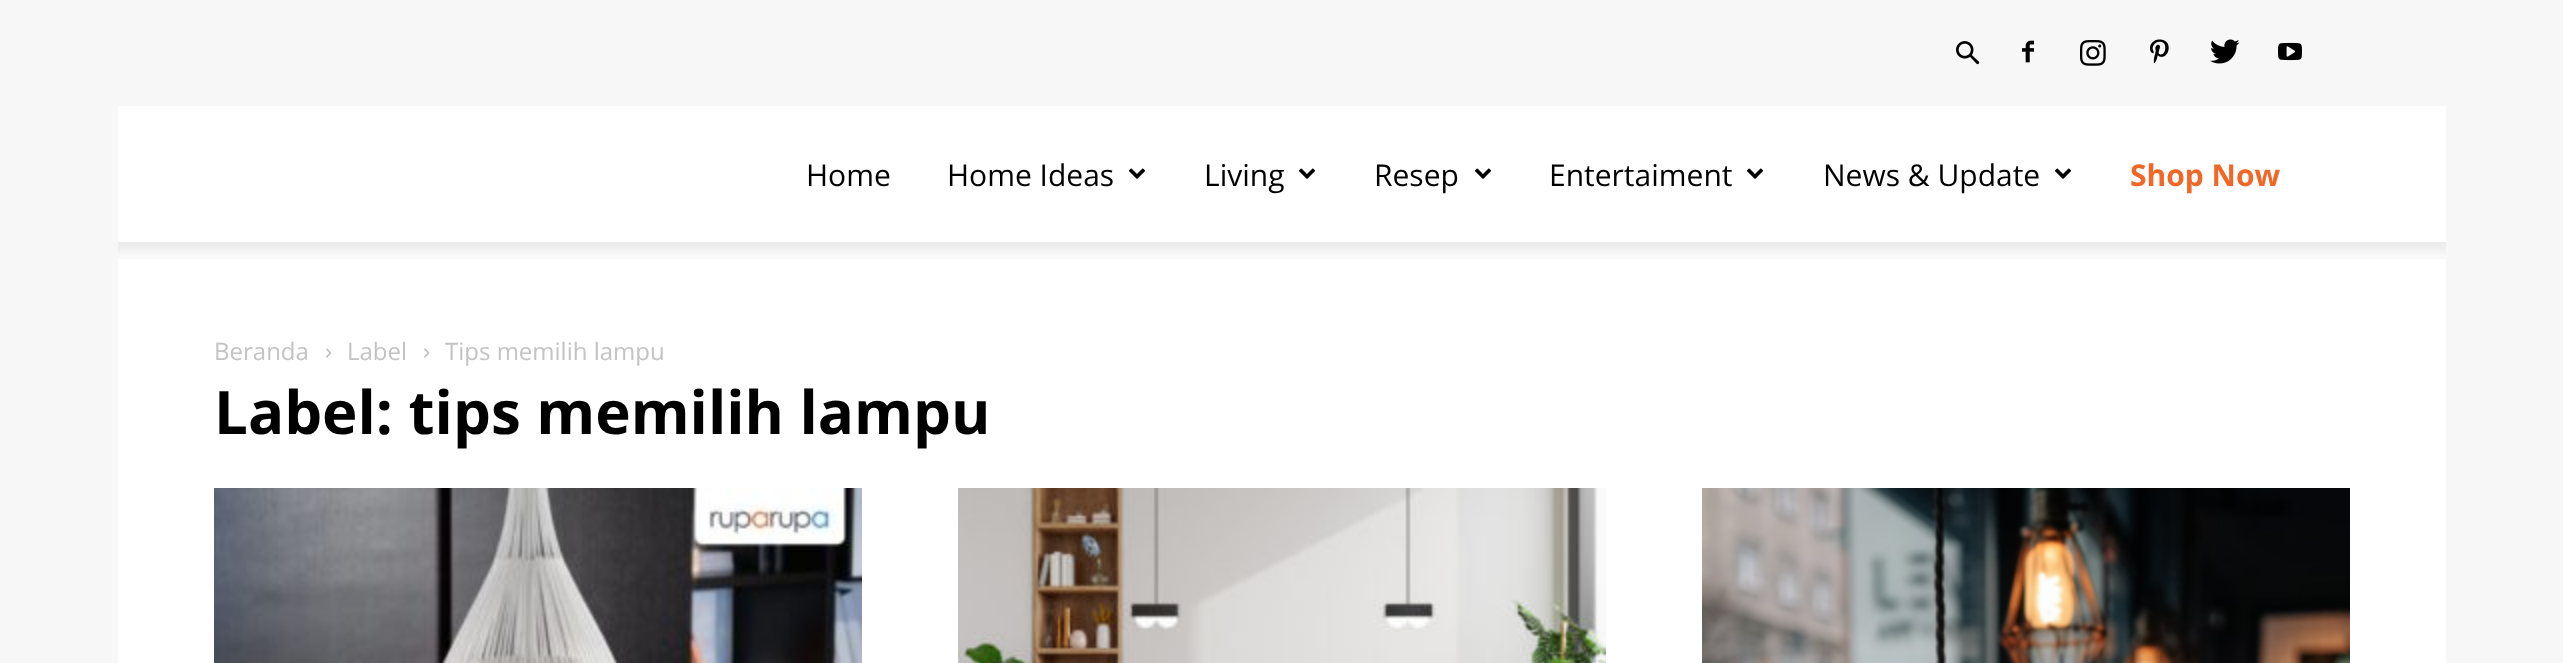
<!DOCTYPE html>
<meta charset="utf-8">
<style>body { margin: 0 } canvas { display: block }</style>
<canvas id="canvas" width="2563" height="663"></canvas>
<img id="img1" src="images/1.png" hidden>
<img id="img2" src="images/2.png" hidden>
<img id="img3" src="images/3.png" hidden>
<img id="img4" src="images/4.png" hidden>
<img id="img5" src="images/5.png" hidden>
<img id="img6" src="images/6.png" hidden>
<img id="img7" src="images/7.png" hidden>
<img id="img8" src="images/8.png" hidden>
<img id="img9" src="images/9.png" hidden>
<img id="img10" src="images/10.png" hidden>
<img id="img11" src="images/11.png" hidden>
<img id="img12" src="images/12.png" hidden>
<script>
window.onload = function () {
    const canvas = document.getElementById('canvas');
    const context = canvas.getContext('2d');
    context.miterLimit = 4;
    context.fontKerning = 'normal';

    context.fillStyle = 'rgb(247, 247, 247)';
    context.fillRect(0, 0, 2563, 663);
    context.drawImage(document.getElementById('img1'), 1956, 41, 24, 24);
    context.drawImage(document.getElementById('img2'), 2022, 40, 12, 23);
    context.drawImage(document.getElementById('img3'), 2080, 40, 26, 26);
    context.drawImage(document.getElementById('img4'), 2150, 39, 19, 25);
    context.drawImage(document.getElementById('img5'), 2210, 39, 30, 25);
    context.drawImage(document.getElementById('img6'), 2278, 42, 24, 19);
    context.fillStyle = 'rgb(255, 255, 255)';
    context.fillRect(118, 106, 2328, 557);
    context.drawImage(document.getElementById('img7'), 1128, 168, 18, 11);
    context.drawImage(document.getElementById('img7'), 1298, 168, 18, 11);
    context.drawImage(document.getElementById('img7'), 1474, 168, 18, 11);
    context.drawImage(document.getElementById('img7'), 1746, 168, 18, 11);
    context.drawImage(document.getElementById('img7'), 2054, 168, 18, 11);
    context.drawImage(document.getElementById('img8'), 118, 242, 2328, 17);
    context.drawImage(document.getElementById('img9'), 326, 348, 6, 10);
    context.drawImage(document.getElementById('img9'), 424, 348, 6, 10);
    context.drawImage(document.getElementById('img10'), 214, 488, 648, 175);
    context.drawImage(document.getElementById('img11'), 958, 488, 648, 175);
    context.drawImage(document.getElementById('img12'), 1702, 488, 648, 175);
    context.font = '30px Open Sans';
    context.fillStyle = 'rgb(0, 0, 0)';
    context.fillText('Home', 806, 186);
    context.fillText('Home Ideas', 947, 186);
    context.fillText('Living', 1204, 186);
    context.fillText('Resep', 1374, 186);
    context.fillText('Entertaiment', 1549, 186);
    context.fillText('News & Update', 1823, 186);
    context.font = 'bold 30px Open Sans';
    context.fillStyle = 'rgb(241, 103, 39)';
    context.fillText('Shop Now', 2130, 186);
    context.font = '24px Open Sans';
    context.fillStyle = 'rgb(195, 195, 195)';
    context.fillText('Beranda', 214, 360);
    context.fillText('Label', 347, 360);
    context.fillText('Tips memilih lampu', 445, 360);
    context.font = 'bold 60px Open Sans';
    context.fillStyle = 'rgb(0, 0, 0)';
    context.fillText('Label: tips memilih lampu', 214, 434);
};
</script>
